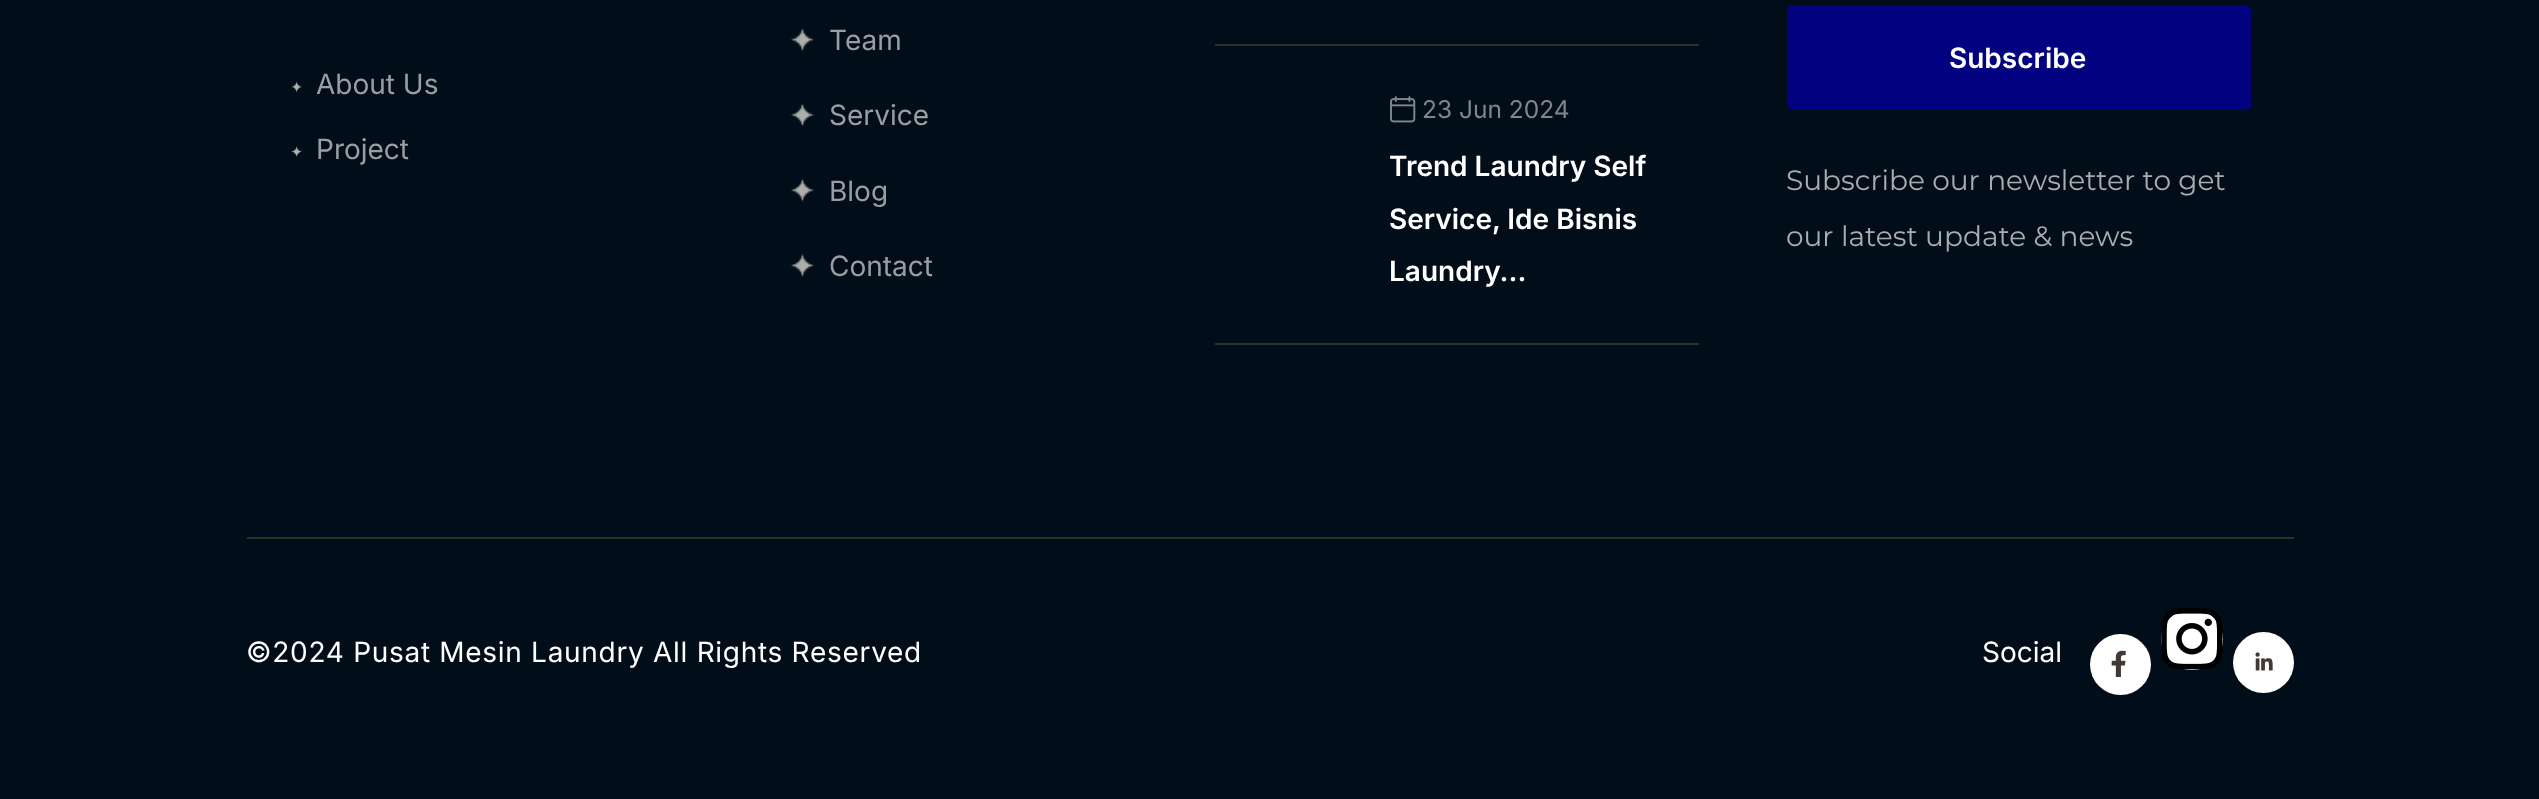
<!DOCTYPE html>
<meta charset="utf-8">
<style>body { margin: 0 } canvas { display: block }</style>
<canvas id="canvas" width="2539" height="799"></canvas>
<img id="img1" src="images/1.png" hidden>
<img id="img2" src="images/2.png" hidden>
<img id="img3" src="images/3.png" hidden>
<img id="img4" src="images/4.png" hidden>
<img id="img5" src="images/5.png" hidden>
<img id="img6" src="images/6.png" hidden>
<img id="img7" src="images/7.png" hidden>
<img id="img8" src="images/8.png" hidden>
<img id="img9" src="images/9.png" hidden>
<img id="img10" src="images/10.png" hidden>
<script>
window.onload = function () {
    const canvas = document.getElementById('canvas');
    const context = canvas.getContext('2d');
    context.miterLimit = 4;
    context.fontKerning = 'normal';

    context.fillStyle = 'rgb(1, 13, 24)';
    context.fillRect(0, 0, 2539, 799);
    context.drawImage(document.getElementById('img1'), 291, 81, 11, 12);
    context.drawImage(document.getElementById('img2'), 291, 146, 11, 11);
    context.drawImage(document.getElementById('img3'), 790, 27, 25, 25);
    context.drawImage(document.getElementById('img4'), 790, 103, 25, 24);
    context.drawImage(document.getElementById('img5'), 790, 178, 25, 24);
    context.drawImage(document.getElementById('img6'), 790, 253, 25, 25);
    context.fillStyle = 'rgb(46, 48, 36)';
    context.fillRect(1215, 44, 484, 2);
    context.fillRect(1215, 343, 484, 2);
    context.drawImage(document.getElementById('img7'), 1390, 96, 26, 27);
    context.fillStyle = 'rgb(2, 1, 127)';
    context.beginPath();
    context.roundRect(1787, 5, 464, 105, 5);
    context.fill();
    context.fillStyle = 'rgb(46, 48, 36)';
    context.fillRect(247, 537, 2047, 2);
    context.fillStyle = 'rgb(255, 255, 255)';
    context.beginPath();
    context.arc(2120.5, 664.5, 30.5, 0, 2 * Math.PI);
    context.fill();
    context.drawImage(document.getElementById('img8'), 2111, 650, 15, 27);
    context.beginPath();
    context.roundRect(2161, 609, 62, 61, 30.5);
    context.fill();
    context.drawImage(document.getElementById('img9'), 2161, 608, 62, 62);
    context.beginPath();
    context.arc(2263.5, 662.5, 30.5, 0, 2 * Math.PI);
    context.fill();
    context.drawImage(document.getElementById('img10'), 2255, 652, 18, 19);
    context.font = '28px Inter';
    context.fillStyle = 'rgb(153, 158, 163)';
    context.fillText('About Us', 316, 94);
    context.fillText('Project', 316, 159);
    context.fillText('Team', 829, 50);
    context.fillText('Service', 829, 125);
    context.fillText('Blog', 829, 201);
    context.fillText('Contact', 829, 276);
    context.font = '24.5px Inter';
    context.fillStyle = 'rgb(128, 134, 140)';
    context.fillText('23 Jun 2024', 1422, 118);
    context.font = '600 28px Inter';
    context.fillStyle = 'rgb(255, 255, 255)';
    context.fillText('Trend Laundry Self', 1389, 176);
    context.fillText('Service, Ide Bisnis', 1389, 229);
    context.fillText('Laundry...', 1389, 281);
    context.fillText('Subscribe', 1949, 68);
    context.font = '28px Montserrat';
    context.fillStyle = 'rgb(169, 173, 176)';
    context.fillText('Subscribe our newsletter to get', 1786, 190);
    context.fillText('our latest update & news', 1786, 246);
    context.letterSpacing = '0.7px';
    context.font = '28px Inter';
    context.fillStyle = 'rgb(255, 255, 255)';
    context.fillText('©2024 Pusat Mesin Laundry All Rights Reserved', 246, 662);
    context.letterSpacing = '0px';
    context.fillText('Social', 1982, 662);
};
</script>
